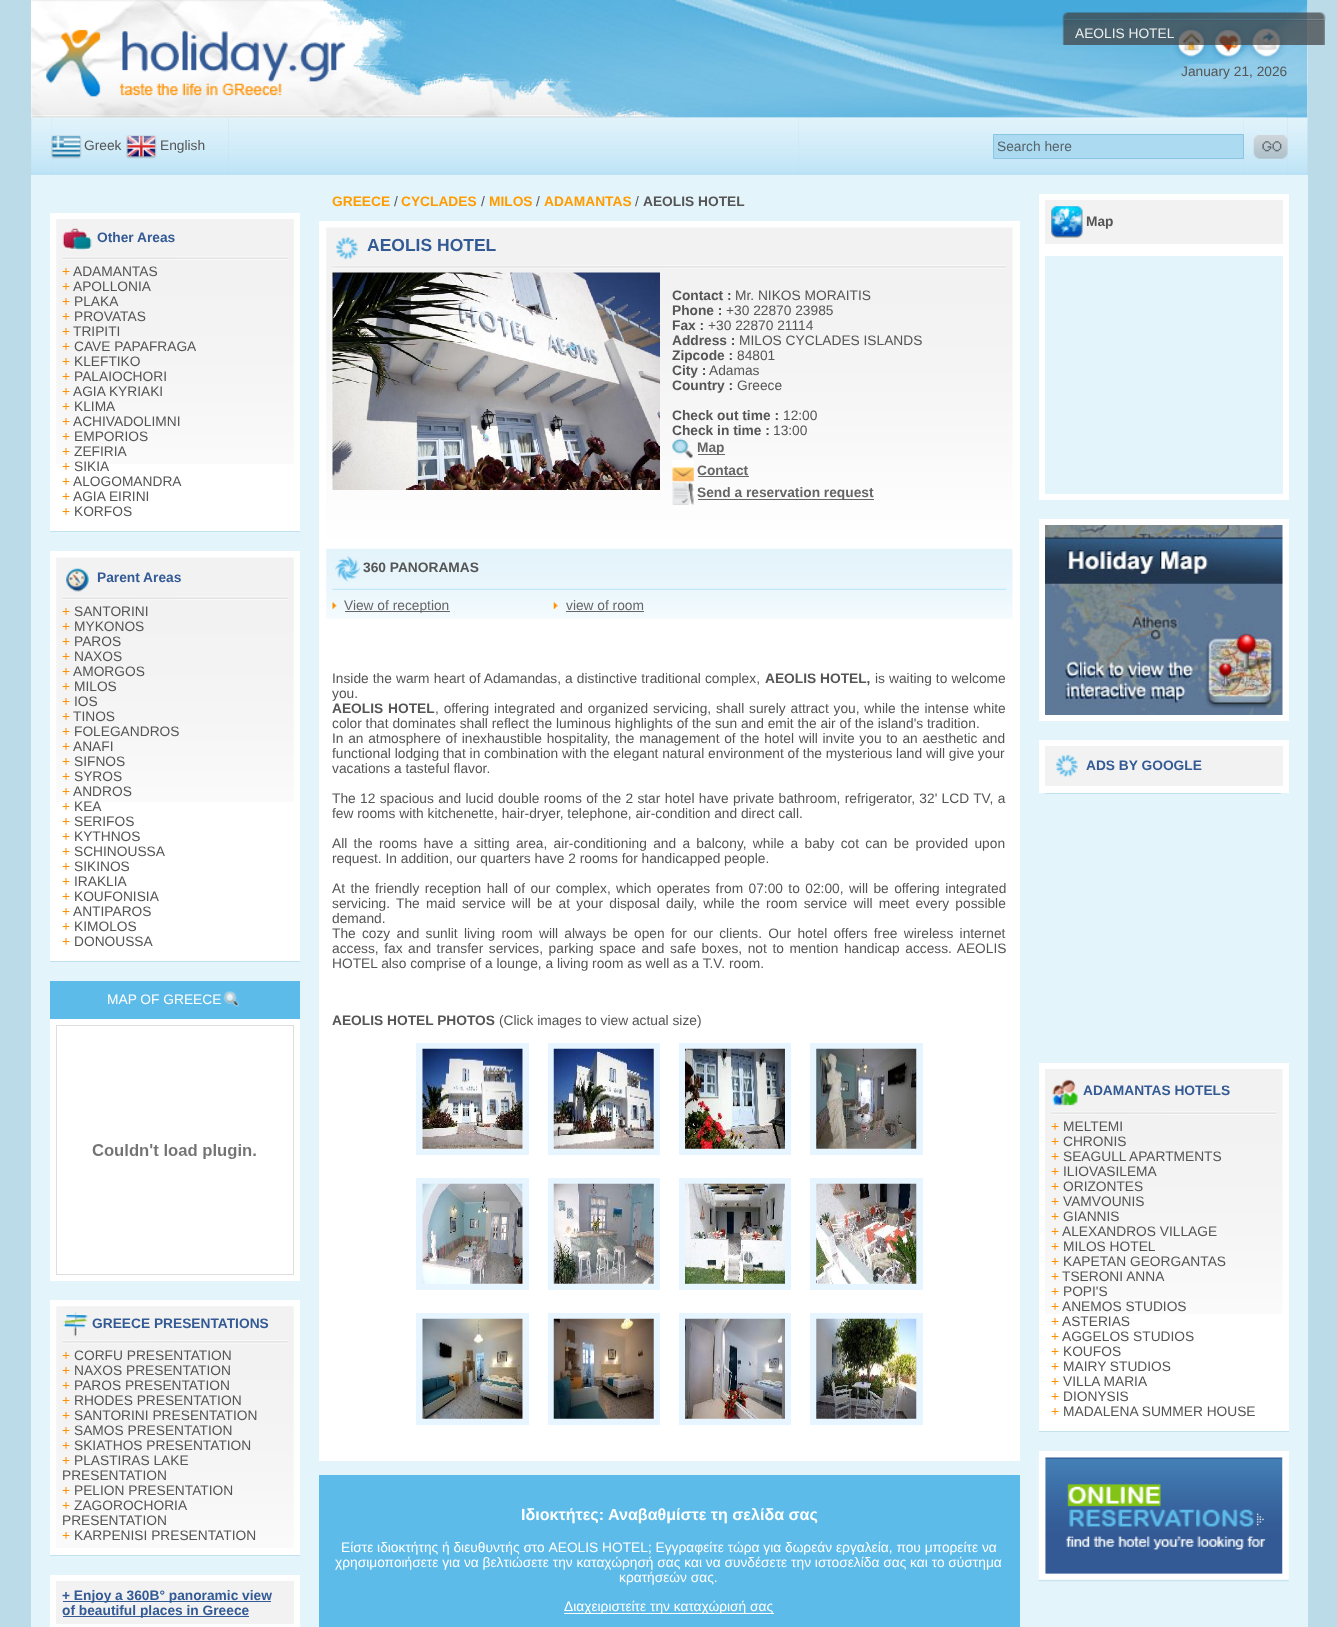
<!DOCTYPE html>
<meta charset="utf-8">
<style>body { margin: 0 } canvas { display: block }</style>
<canvas id="canvas" width="1337" height="1627"></canvas>
<img id="img1" src="images/3.png" hidden>
<img id="img2" src="images/5.png" hidden>
<img id="img3" src="images/11.png" hidden>
<img id="img4" src="images/12.png" hidden>
<img id="img5" src="images/13.png" hidden>
<img id="img6" src="images/15.png" hidden>
<img id="img7" src="images/6.png" hidden>
<img id="img8" src="images/1.png" hidden>
<img id="img9" src="images/2.png" hidden>
<img id="img10" src="images/7.png" hidden>
<img id="img11" src="images/8.png" hidden>
<img id="img12" src="images/4.png" hidden>
<img id="img13" src="images/9.png" hidden>
<img id="img14" src="images/10.png" hidden>
<img id="img15" src="images/14.png" hidden>
<img id="img16" src="images/16.png" hidden>
<img id="img17" src="images/17.png" hidden>
<img id="img18" src="images/18.png" hidden>
<img id="img19" src="images/19.png" hidden>
<img id="img20" src="images/20.png" hidden>
<img id="img21" src="images/21.png" hidden>
<img id="img22" src="images/22.png" hidden>
<img id="img23" src="images/23.png" hidden>
<img id="img24" src="images/24.png" hidden>
<img id="img25" src="images/25.png" hidden>
<img id="img26" src="images/26.png" hidden>
<img id="img27" src="images/27.png" hidden>
<img id="img28" src="images/28.png" hidden>
<img id="img29" src="images/29.png" hidden>
<img id="img30" src="images/30.png" hidden>
<img id="img31" src="images/31.png" hidden>
<img id="img32" src="images/32.png" hidden>
<img id="img33" src="images/33.png" hidden>
<img id="img34" src="images/34.png" hidden>
<img id="img35" src="images/35.png" hidden>
<img id="img36" src="images/36.png" hidden>
<img id="img37" src="images/37.png" hidden>
<img id="img38" src="images/38.png" hidden>
<img id="img39" src="images/39.png" hidden>
<img id="img40" src="images/40.png" hidden>
<img id="img41" src="images/41.png" hidden>
<img id="img42" src="images/42.png" hidden>
<img id="img43" src="images/43.png" hidden>
<img id="img44" src="images/44.png" hidden>
<img id="img45" src="images/45.png" hidden>
<img id="img46" src="images/46.png" hidden>
<img id="img47" src="images/47.png" hidden>
<img id="img48" src="images/48.png" hidden>
<img id="img49" src="images/49.png" hidden>
<img id="img50" src="images/50.png" hidden>
<img id="img51" src="images/51.png" hidden>
<img id="img52" src="images/52.png" hidden>
<img id="img53" src="images/53.png" hidden>
<img id="img54" src="images/54.png" hidden>
<img id="img55" src="images/55.png" hidden>
<img id="img56" src="images/56.png" hidden>
<img id="img57" src="images/57.png" hidden>
<script>
window.onload = function () {
    const canvas = document.getElementById('canvas');
    const context = canvas.getContext('2d');
    context.miterLimit = 4;
    context.fontKerning = 'normal';

    context.fillStyle = 'rgb(187, 219, 232)';
    context.fillRect(0, 0, 1337, 1627);
    context.drawImage(document.getElementById('img1'), 351, 0, 937, 118);
    context.drawImage(document.getElementById('img2'), 1170, 0, 118, 64);
    context.fillStyle = 'rgb(255, 255, 255)';
    context.fillRect(1288, 0, 20, 118);
    context.fillRect(31, 0, 320, 118);
    context.drawImage(document.getElementById('img3'), 229, 117, 570, 58);
    context.drawImage(document.getElementById('img4'), 798, 117, 446, 58);
    context.drawImage(document.getElementById('img5'), 1243, 117, 45, 58);
    context.drawImage(document.getElementById('img6'), 1287, 117, 21, 58);
    context.drawImage(document.getElementById('img7'), 1287, 0, 21, 118);
    context.drawImage(document.getElementById('img8'), 1062, 12, 264, 9);
    context.drawImage(document.getElementById('img9'), 1062, 20, 263, 25);
    context.drawImage(document.getElementById('img10'), 31, 117, 21, 58);
    context.drawImage(document.getElementById('img11'), 51, 117, 178, 58);
    context.drawImage(document.getElementById('img12'), 31, 0, 321, 118);
    context.drawImage(document.getElementById('img13'), 51, 135, 31, 24);
    context.drawImage(document.getElementById('img14'), 126, 135, 31, 24);
    context.fillStyle = 'rgb(171, 218, 241)';
    context.beginPath();
    context.rect(993.5, 134.5, 250, 24);
    context.fill();
    context.strokeStyle = 'rgb(138, 198, 227)';
    context.stroke();
    context.drawImage(document.getElementById('img15'), 1253, 135, 35, 24);
    context.fillStyle = 'rgb(228, 244, 251)';
    context.fillRect(31, 175, 1277, 19);
    context.fillRect(31, 194, 19, 1433);
    context.fillRect(50, 194, 250, 1381);
    context.fillStyle = 'rgb(255, 255, 255)';
    context.fillRect(50, 213, 250, 318);
    context.drawImage(document.getElementById('img16'), 56, 219, 238, 245);
    context.drawImage(document.getElementById('img17'), 62, 228, 30, 22);
    context.drawImage(document.getElementById('img18'), 62, 256, 226, 4);
    context.fillStyle = 'rgb(193, 225, 239)';
    context.fillRect(50, 531, 250, 1);
    context.fillStyle = 'rgb(255, 255, 255)';
    context.fillRect(50, 551, 250, 410);
    context.drawImage(document.getElementById('img19'), 56, 557, 238, 245);
    context.drawImage(document.getElementById('img20'), 66, 568, 23, 24);
    context.drawImage(document.getElementById('img21'), 62, 596, 226, 4);
    context.fillStyle = 'rgb(193, 225, 239)';
    context.fillRect(50, 961, 250, 1);
    context.fillStyle = 'rgb(93, 187, 233)';
    context.fillRect(50, 981, 250, 38);
    context.drawImage(document.getElementById('img22'), 223, 991, 16, 16);
    context.fillStyle = 'rgb(255, 255, 255)';
    context.fillRect(50, 1019, 250, 262);
    context.strokeStyle = 'rgb(222, 222, 222)';
    context.strokeRect(56.5, 1025.5, 237, 249);
    context.drawImage(document.getElementById('img23'), 92, 1144, 164, 15);
    context.fillRect(50, 1300, 250, 255);
    context.drawImage(document.getElementById('img24'), 56, 1306, 238, 242);
    context.drawImage(document.getElementById('img25'), 63, 1312, 25, 25);
    context.drawImage(document.getElementById('img26'), 62, 1340, 226, 4);
    context.fillStyle = 'rgb(193, 225, 239)';
    context.fillRect(50, 1555, 250, 1);
    context.fillStyle = 'rgb(255, 255, 255)';
    context.fillRect(50, 1575, 250, 52);
    context.fillStyle = 'rgb(242, 242, 242)';
    context.fillRect(56, 1581, 238, 43);
    context.fillStyle = 'rgb(51, 90, 149)';
    context.fillRect(63, 1601, 208, 1);
    context.fillRect(63, 1616, 186, 1);
    context.fillStyle = 'rgb(228, 244, 251)';
    context.fillRect(300, 194, 19, 1433);
    context.fillRect(319, 194, 701, 1281);
    context.fillStyle = 'rgb(255, 255, 255)';
    context.fillRect(319, 221, 701, 1240);
    context.drawImage(document.getElementById('img27'), 326, 227, 687, 314);
    context.drawImage(document.getElementById('img28'), 336, 237, 22, 22);
    context.drawImage(document.getElementById('img29'), 332, 265, 674, 4);
    context.drawImage(document.getElementById('img30'), 332, 272, 328, 218);
    context.drawImage(document.getElementById('img31'), 672, 438, 21, 20);
    context.fillStyle = 'rgb(102, 102, 102)';
    context.fillRect(698, 454, 27, 1);
    context.drawImage(document.getElementById('img32'), 672, 460, 22, 22);
    context.fillRect(698, 476, 51, 1);
    context.drawImage(document.getElementById('img33'), 672, 482, 22, 23);
    context.fillRect(698, 499, 176, 1);
    context.drawImage(document.getElementById('img34'), 326, 548, 687, 71);
    context.drawImage(document.getElementById('img35'), 335, 556, 26, 26);
    context.drawImage(document.getElementById('img36'), 332, 588, 675, 2);
    context.drawImage(document.getElementById('img37'), 332, 602, 5, 7);
    context.fillRect(345, 611, 105, 1);
    context.drawImage(document.getElementById('img38'), 553, 602, 5, 7);
    context.fillRect(566, 611, 78, 1);
    context.fillStyle = 'rgb(230, 245, 255)';
    context.fillRect(416, 1043, 113, 112);
    context.fillStyle = 'rgb(255, 255, 255)';
    context.fillRect(423, 1049, 100, 100);
    context.drawImage(document.getElementById('img39'), 422, 1048, 101, 101);
    context.fillStyle = 'rgb(230, 245, 255)';
    context.fillRect(548, 1043, 112, 112);
    context.fillStyle = 'rgb(255, 255, 255)';
    context.fillRect(554, 1049, 100, 100);
    context.drawImage(document.getElementById('img40'), 553, 1048, 101, 101);
    context.fillStyle = 'rgb(230, 245, 255)';
    context.fillRect(679, 1043, 112, 112);
    context.drawImage(document.getElementById('img41'), 685, 1048, 100, 101);
    context.fillRect(810, 1043, 113, 112);
    context.fillStyle = 'rgb(255, 255, 255)';
    context.fillRect(816, 1049, 100, 100);
    context.drawImage(document.getElementById('img42'), 816, 1048, 101, 101);
    context.fillStyle = 'rgb(230, 245, 255)';
    context.fillRect(416, 1178, 113, 112);
    context.fillStyle = 'rgb(255, 255, 255)';
    context.fillRect(423, 1184, 100, 100);
    context.drawImage(document.getElementById('img43'), 422, 1183, 101, 101);
    context.fillStyle = 'rgb(230, 245, 255)';
    context.fillRect(548, 1178, 112, 112);
    context.fillStyle = 'rgb(255, 255, 255)';
    context.fillRect(554, 1184, 100, 100);
    context.drawImage(document.getElementById('img44'), 553, 1183, 101, 101);
    context.fillStyle = 'rgb(230, 245, 255)';
    context.fillRect(679, 1178, 112, 112);
    context.drawImage(document.getElementById('img45'), 685, 1183, 100, 101);
    context.fillRect(810, 1178, 113, 112);
    context.fillStyle = 'rgb(255, 255, 255)';
    context.fillRect(816, 1184, 100, 100);
    context.drawImage(document.getElementById('img46'), 816, 1183, 101, 101);
    context.fillStyle = 'rgb(230, 245, 255)';
    context.fillRect(416, 1313, 113, 112);
    context.fillStyle = 'rgb(255, 255, 255)';
    context.fillRect(423, 1319, 100, 100);
    context.drawImage(document.getElementById('img47'), 422, 1318, 101, 101);
    context.fillStyle = 'rgb(230, 245, 255)';
    context.fillRect(548, 1313, 112, 112);
    context.fillStyle = 'rgb(255, 255, 255)';
    context.fillRect(554, 1319, 100, 100);
    context.drawImage(document.getElementById('img48'), 553, 1318, 101, 101);
    context.fillStyle = 'rgb(230, 245, 255)';
    context.fillRect(679, 1313, 112, 112);
    context.drawImage(document.getElementById('img49'), 685, 1318, 100, 101);
    context.fillRect(810, 1313, 113, 112);
    context.fillStyle = 'rgb(255, 255, 255)';
    context.fillRect(816, 1319, 100, 100);
    context.drawImage(document.getElementById('img50'), 816, 1318, 101, 101);
    context.fillStyle = 'rgb(92, 187, 233)';
    context.fillRect(319, 1475, 701, 152);
    context.fillStyle = 'rgb(255, 255, 255)';
    context.fillRect(564, 1613, 210, 1);
    context.fillStyle = 'rgb(228, 244, 251)';
    context.fillRect(1020, 194, 19, 1433);
    context.fillRect(1039, 256, 250, 1371);
    context.fillStyle = 'rgb(242, 242, 242)';
    context.beginPath();
    context.rect(1042, 197, 244, 50);
    context.fill();
    context.strokeStyle = 'rgb(255, 255, 255)';
    context.lineWidth = 6;
    context.stroke();
    context.drawImage(document.getElementById('img51'), 1051, 206, 32, 32);
    context.strokeRect(1042, 253, 244, 244);
    context.fillStyle = 'rgb(255, 255, 255)';
    context.fillRect(1039, 519, 250, 202);
    context.drawImage(document.getElementById('img52'), 1045, 525, 238, 190);
    context.fillRect(1039, 740, 250, 53);
    context.fillStyle = 'rgb(242, 242, 242)';
    context.fillRect(1045, 746, 238, 40);
    context.drawImage(document.getElementById('img53'), 1056, 754, 22, 23);
    context.fillStyle = 'rgb(193, 225, 239)';
    context.fillRect(1045, 793, 236, 1);
    context.fillStyle = 'rgb(255, 255, 255)';
    context.fillRect(1039, 1063, 250, 368);
    context.drawImage(document.getElementById('img54'), 1045, 1069, 238, 245);
    context.drawImage(document.getElementById('img55'), 1052, 1079, 26, 27);
    context.drawImage(document.getElementById('img56'), 1051, 1111, 225, 4);
    context.fillStyle = 'rgb(193, 225, 239)';
    context.fillRect(1039, 1431, 250, 1);
    context.fillStyle = 'rgb(255, 255, 255)';
    context.fillRect(1039, 1451, 250, 7);
    context.drawImage(document.getElementById('img57'), 1038, 1457, 251, 125);
    context.fillStyle = 'rgb(228, 244, 251)';
    context.fillRect(1289, 194, 19, 1433);
    context.font = '13.75px Liberation Sans';
    context.fillStyle = 'rgb(234, 237, 238)';
    context.fillText('AEOLIS HOTEL', 1075, 38);
    context.fillStyle = 'rgb(85, 85, 85)';
    context.fillText('January 21, 2026', 1181, 76);
    context.fillText('Greek', 84, 150);
    context.fillText('English', 160, 150);
    context.fillStyle = 'rgb(86, 99, 105)';
    context.fillText('Search here', 997, 151);
    context.font = 'bold 13.75px Liberation Sans';
    context.fillStyle = 'rgb(51, 90, 149)';
    context.fillText('Other Areas', 97, 242);
    context.font = '13.75px Liberation Sans';
    context.fillStyle = 'rgb(255, 144, 0)';
    context.fillText('+', 62, 276);
    context.fillStyle = 'rgb(85, 85, 85)';
    context.fillText('ADAMANTAS', 73, 276);
    context.fillStyle = 'rgb(255, 144, 0)';
    context.fillText('+', 62, 291);
    context.fillStyle = 'rgb(85, 85, 85)';
    context.fillText('APOLLONIA', 73, 291);
    context.fillStyle = 'rgb(255, 144, 0)';
    context.fillText('+', 62, 306);
    context.fillStyle = 'rgb(85, 85, 85)';
    context.fillText('PLAKA', 74, 306);
    context.fillStyle = 'rgb(255, 144, 0)';
    context.fillText('+', 62, 321);
    context.fillStyle = 'rgb(85, 85, 85)';
    context.fillText('PROVATAS', 74, 321);
    context.fillStyle = 'rgb(255, 144, 0)';
    context.fillText('+', 62, 336);
    context.fillStyle = 'rgb(85, 85, 85)';
    context.fillText('TRIPITI', 73, 336);
    context.fillStyle = 'rgb(255, 144, 0)';
    context.fillText('+', 62, 351);
    context.fillStyle = 'rgb(85, 85, 85)';
    context.fillText('CAVE PAPAFRAGA', 74, 351);
    context.fillStyle = 'rgb(255, 144, 0)';
    context.fillText('+', 62, 366);
    context.fillStyle = 'rgb(85, 85, 85)';
    context.fillText('KLEFTIKO', 74, 366);
    context.fillStyle = 'rgb(255, 144, 0)';
    context.fillText('+', 62, 381);
    context.fillStyle = 'rgb(85, 85, 85)';
    context.fillText('PALAIOCHORI', 74, 381);
    context.fillStyle = 'rgb(255, 144, 0)';
    context.fillText('+', 62, 396);
    context.fillStyle = 'rgb(85, 85, 85)';
    context.fillText('AGIA KYRIAKI', 73, 396);
    context.fillStyle = 'rgb(255, 144, 0)';
    context.fillText('+', 62, 411);
    context.fillStyle = 'rgb(85, 85, 85)';
    context.fillText('KLIMA', 74, 411);
    context.fillStyle = 'rgb(255, 144, 0)';
    context.fillText('+', 62, 426);
    context.fillStyle = 'rgb(85, 85, 85)';
    context.fillText('ACHIVADOLIMNI', 73, 426);
    context.fillStyle = 'rgb(255, 144, 0)';
    context.fillText('+', 62, 441);
    context.fillStyle = 'rgb(85, 85, 85)';
    context.fillText('EMPORIOS', 74, 441);
    context.fillStyle = 'rgb(255, 144, 0)';
    context.fillText('+', 62, 456);
    context.fillStyle = 'rgb(85, 85, 85)';
    context.fillText('ZEFIRIA', 74, 456);
    context.fillStyle = 'rgb(255, 144, 0)';
    context.fillText('+', 62, 471);
    context.fillStyle = 'rgb(85, 85, 85)';
    context.fillText('SIKIA', 74, 471);
    context.fillStyle = 'rgb(255, 144, 0)';
    context.fillText('+', 62, 486);
    context.fillStyle = 'rgb(85, 85, 85)';
    context.fillText('ALOGOMANDRA', 73, 486);
    context.fillStyle = 'rgb(255, 144, 0)';
    context.fillText('+', 62, 501);
    context.fillStyle = 'rgb(85, 85, 85)';
    context.fillText('AGIA EIRINI', 73, 501);
    context.fillStyle = 'rgb(255, 144, 0)';
    context.fillText('+', 62, 516);
    context.fillStyle = 'rgb(85, 85, 85)';
    context.fillText('KORFOS', 74, 516);
    context.font = 'bold 13.75px Liberation Sans';
    context.fillStyle = 'rgb(51, 90, 149)';
    context.fillText('Parent Areas', 97, 582);
    context.font = '13.75px Liberation Sans';
    context.fillStyle = 'rgb(255, 144, 0)';
    context.fillText('+', 62, 616);
    context.fillStyle = 'rgb(85, 85, 85)';
    context.fillText('SANTORINI', 74, 616);
    context.fillStyle = 'rgb(255, 144, 0)';
    context.fillText('+', 62, 631);
    context.fillStyle = 'rgb(85, 85, 85)';
    context.fillText('MYKONOS', 74, 631);
    context.fillStyle = 'rgb(255, 144, 0)';
    context.fillText('+', 62, 646);
    context.fillStyle = 'rgb(85, 85, 85)';
    context.fillText('PAROS', 74, 646);
    context.fillStyle = 'rgb(255, 144, 0)';
    context.fillText('+', 62, 661);
    context.fillStyle = 'rgb(85, 85, 85)';
    context.fillText('NAXOS', 74, 661);
    context.fillStyle = 'rgb(255, 144, 0)';
    context.fillText('+', 62, 676);
    context.fillStyle = 'rgb(85, 85, 85)';
    context.fillText('AMORGOS', 73, 676);
    context.fillStyle = 'rgb(255, 144, 0)';
    context.fillText('+', 62, 691);
    context.fillStyle = 'rgb(85, 85, 85)';
    context.fillText('MILOS', 74, 691);
    context.fillStyle = 'rgb(255, 144, 0)';
    context.fillText('+', 62, 706);
    context.fillStyle = 'rgb(85, 85, 85)';
    context.fillText('IOS', 74, 706);
    context.fillStyle = 'rgb(255, 144, 0)';
    context.fillText('+', 62, 721);
    context.fillStyle = 'rgb(85, 85, 85)';
    context.fillText('TINOS', 73, 721);
    context.fillStyle = 'rgb(255, 144, 0)';
    context.fillText('+', 62, 736);
    context.fillStyle = 'rgb(85, 85, 85)';
    context.fillText('FOLEGANDROS', 74, 736);
    context.fillStyle = 'rgb(255, 144, 0)';
    context.fillText('+', 62, 751);
    context.fillStyle = 'rgb(85, 85, 85)';
    context.fillText('ANAFI', 73, 751);
    context.fillStyle = 'rgb(255, 144, 0)';
    context.fillText('+', 62, 766);
    context.fillStyle = 'rgb(85, 85, 85)';
    context.fillText('SIFNOS', 74, 766);
    context.fillStyle = 'rgb(255, 144, 0)';
    context.fillText('+', 62, 781);
    context.fillStyle = 'rgb(85, 85, 85)';
    context.fillText('SYROS', 74, 781);
    context.fillStyle = 'rgb(255, 144, 0)';
    context.fillText('+', 62, 796);
    context.fillStyle = 'rgb(85, 85, 85)';
    context.fillText('ANDROS', 73, 796);
    context.fillStyle = 'rgb(255, 144, 0)';
    context.fillText('+', 62, 811);
    context.fillStyle = 'rgb(85, 85, 85)';
    context.fillText('KEA', 74, 811);
    context.fillStyle = 'rgb(255, 144, 0)';
    context.fillText('+', 62, 826);
    context.fillStyle = 'rgb(85, 85, 85)';
    context.fillText('SERIFOS', 74, 826);
    context.fillStyle = 'rgb(255, 144, 0)';
    context.fillText('+', 62, 841);
    context.fillStyle = 'rgb(85, 85, 85)';
    context.fillText('KYTHNOS', 74, 841);
    context.fillStyle = 'rgb(255, 144, 0)';
    context.fillText('+', 62, 856);
    context.fillStyle = 'rgb(85, 85, 85)';
    context.fillText('SCHINOUSSA', 74, 856);
    context.fillStyle = 'rgb(255, 144, 0)';
    context.fillText('+', 62, 871);
    context.fillStyle = 'rgb(85, 85, 85)';
    context.fillText('SIKINOS', 74, 871);
    context.fillStyle = 'rgb(255, 144, 0)';
    context.fillText('+', 62, 886);
    context.fillStyle = 'rgb(85, 85, 85)';
    context.fillText('IRAKLIA', 74, 886);
    context.fillStyle = 'rgb(255, 144, 0)';
    context.fillText('+', 62, 901);
    context.fillStyle = 'rgb(85, 85, 85)';
    context.fillText('KOUFONISIA', 74, 901);
    context.fillStyle = 'rgb(255, 144, 0)';
    context.fillText('+', 62, 916);
    context.fillStyle = 'rgb(85, 85, 85)';
    context.fillText('ANTIPAROS', 73, 916);
    context.fillStyle = 'rgb(255, 144, 0)';
    context.fillText('+', 62, 931);
    context.fillStyle = 'rgb(85, 85, 85)';
    context.fillText('KIMOLOS', 74, 931);
    context.fillStyle = 'rgb(255, 144, 0)';
    context.fillText('+', 62, 946);
    context.fillStyle = 'rgb(85, 85, 85)';
    context.fillText('DONOUSSA', 74, 946);
    context.fillStyle = 'rgb(255, 255, 255)';
    context.fillText('MAP OF GREECE', 107, 1004);
    context.font = 'bold 13.75px Liberation Sans';
    context.fillStyle = 'rgb(51, 90, 149)';
    context.fillText('GREECE PRESENTATIONS', 92, 1328);
    context.font = '13.75px Liberation Sans';
    context.fillStyle = 'rgb(255, 144, 0)';
    context.fillText('+', 62, 1360);
    context.fillStyle = 'rgb(85, 85, 85)';
    context.fillText('CORFU PRESENTATION', 74, 1360);
    context.fillStyle = 'rgb(255, 144, 0)';
    context.fillText('+', 62, 1375);
    context.fillStyle = 'rgb(85, 85, 85)';
    context.fillText('NAXOS PRESENTATION', 74, 1375);
    context.fillStyle = 'rgb(255, 144, 0)';
    context.fillText('+', 62, 1390);
    context.fillStyle = 'rgb(85, 85, 85)';
    context.fillText('PAROS PRESENTATION', 74, 1390);
    context.fillStyle = 'rgb(255, 144, 0)';
    context.fillText('+', 62, 1405);
    context.fillStyle = 'rgb(85, 85, 85)';
    context.fillText('RHODES PRESENTATION', 74, 1405);
    context.fillStyle = 'rgb(255, 144, 0)';
    context.fillText('+', 62, 1420);
    context.fillStyle = 'rgb(85, 85, 85)';
    context.fillText('SANTORINI PRESENTATION', 74, 1420);
    context.fillStyle = 'rgb(255, 144, 0)';
    context.fillText('+', 62, 1435);
    context.fillStyle = 'rgb(85, 85, 85)';
    context.fillText('SAMOS PRESENTATION', 74, 1435);
    context.fillStyle = 'rgb(255, 144, 0)';
    context.fillText('+', 62, 1450);
    context.fillStyle = 'rgb(85, 85, 85)';
    context.fillText('SKIATHOS PRESENTATION', 74, 1450);
    context.fillStyle = 'rgb(255, 144, 0)';
    context.fillText('+', 62, 1465);
    context.fillStyle = 'rgb(85, 85, 85)';
    context.fillText('PLASTIRAS LAKE', 74, 1465);
    context.fillText('PRESENTATION', 62, 1480);
    context.fillStyle = 'rgb(255, 144, 0)';
    context.fillText('+', 62, 1495);
    context.fillStyle = 'rgb(85, 85, 85)';
    context.fillText('PELION PRESENTATION', 74, 1495);
    context.fillStyle = 'rgb(255, 144, 0)';
    context.fillText('+', 62, 1510);
    context.fillStyle = 'rgb(85, 85, 85)';
    context.fillText('ZAGOROCHORIA', 74, 1510);
    context.fillText('PRESENTATION', 62, 1525);
    context.fillStyle = 'rgb(255, 144, 0)';
    context.fillText('+', 62, 1540);
    context.fillStyle = 'rgb(85, 85, 85)';
    context.fillText('KARPENISI PRESENTATION', 74, 1540);
    context.font = 'bold 13.75px Liberation Sans';
    context.fillStyle = 'rgb(51, 90, 149)';
    context.fillText('+ Enjoy a 360Β° panoramic view', 62, 1600);
    context.fillText('of beautiful places in Greece', 62, 1615);
    context.fillStyle = 'rgb(255, 156, 0)';
    context.fillText('GREECE', 332, 206);
    context.font = '13.75px Liberation Sans';
    context.fillStyle = 'rgb(85, 85, 85)';
    context.fillText('/', 394, 206);
    context.font = 'bold 13.75px Liberation Sans';
    context.fillStyle = 'rgb(255, 156, 0)';
    context.fillText('CYCLADES', 401, 206);
    context.font = '13.75px Liberation Sans';
    context.fillStyle = 'rgb(85, 85, 85)';
    context.fillText('/', 481, 206);
    context.font = 'bold 13.75px Liberation Sans';
    context.fillStyle = 'rgb(255, 156, 0)';
    context.fillText('MILOS', 489, 206);
    context.font = '13.75px Liberation Sans';
    context.fillStyle = 'rgb(85, 85, 85)';
    context.fillText('/', 536, 206);
    context.font = 'bold 13.75px Liberation Sans';
    context.fillStyle = 'rgb(255, 156, 0)';
    context.fillText('ADAMANTAS', 544, 206);
    context.font = '13.75px Liberation Sans';
    context.fillStyle = 'rgb(85, 85, 85)';
    context.fillText('/', 635, 206);
    context.font = 'bold 13.75px Liberation Sans';
    context.fillText('AEOLIS HOTEL', 643, 206);
    context.font = 'bold 17.5px Liberation Sans';
    context.fillStyle = 'rgb(51, 90, 149)';
    context.fillText('AEOLIS HOTEL', 367, 251);
    context.font = 'bold 13.75px Liberation Sans';
    context.fillStyle = 'rgb(85, 85, 85)';
    context.fillText('Contact :', 672, 300);
    context.font = '13.75px Liberation Sans';
    context.fillText('Mr. NIKOS MORAITIS', 735, 300);
    context.font = 'bold 13.75px Liberation Sans';
    context.fillText('Phone :', 672, 315);
    context.font = '13.75px Liberation Sans';
    context.fillText('+30 22870 23985', 726, 315);
    context.font = 'bold 13.75px Liberation Sans';
    context.fillText('Fax :', 672, 330);
    context.font = '13.75px Liberation Sans';
    context.fillText('+30 22870 21114', 708, 330);
    context.font = 'bold 13.75px Liberation Sans';
    context.fillText('Address :', 672, 345);
    context.font = '13.75px Liberation Sans';
    context.fillText('MILOS CYCLADES ISLANDS', 739, 345);
    context.font = 'bold 13.75px Liberation Sans';
    context.fillText('Zipcode :', 672, 360);
    context.font = '13.75px Liberation Sans';
    context.fillText('84801', 737, 360);
    context.font = 'bold 13.75px Liberation Sans';
    context.fillText('City :', 672, 375);
    context.font = '13.75px Liberation Sans';
    context.fillText('Adamas', 709, 375);
    context.font = 'bold 13.75px Liberation Sans';
    context.fillText('Country :', 672, 390);
    context.font = '13.75px Liberation Sans';
    context.fillText('Greece', 737, 390);
    context.font = 'bold 13.75px Liberation Sans';
    context.fillText('Check out time :', 672, 420);
    context.font = '13.75px Liberation Sans';
    context.fillText('12:00', 783, 420);
    context.font = 'bold 13.75px Liberation Sans';
    context.fillText('Check in time :', 672, 435);
    context.font = '13.75px Liberation Sans';
    context.fillText('13:00', 773, 435);
    context.font = 'bold 13.75px Liberation Sans';
    context.fillStyle = 'rgb(102, 102, 102)';
    context.fillText('Map', 697, 452);
    context.fillText('Contact', 697, 475);
    context.fillText('Send a reservation request', 697, 497);
    context.fillStyle = 'rgb(85, 85, 85)';
    context.fillText('360 PANORAMAS', 363, 572);
    context.font = '13.75px Liberation Sans';
    context.fillStyle = 'rgb(102, 102, 102)';
    context.fillText('View of reception', 344, 610);
    context.fillText('view of room', 566, 610);
    context.wordSpacing = '0.25px';
    context.fillStyle = 'rgb(85, 85, 85)';
    context.fillText('Inside the warm heart of Adamandas, a distinctive traditional complex,', 332, 683);
    context.wordSpacing = '0px';
    context.font = 'bold 13.75px Liberation Sans';
    context.fillText('AEOLIS HOTEL,', 765, 683);
    context.wordSpacing = '0.25px';
    context.font = '13.75px Liberation Sans';
    context.fillText('is waiting to welcome', 875, 683);
    context.wordSpacing = '0px';
    context.fillText('you.', 332, 698);
    context.wordSpacing = '1px';
    context.font = 'bold 13.75px Liberation Sans';
    context.fillText('AEOLIS HOTEL', 332, 713);
    context.font = '13.75px Liberation Sans';
    context.fillText(', offering integrated and organized servicing, shall surely attract you, while the intense white', 435, 713);
    context.wordSpacing = '0px';
    context.fillText('color that dominates shall reflect the luminous highlights of the sun and emit the air of the island\'s tradition.', 332, 728);
    context.wordSpacing = '0.9px';
    context.fillText('In an atmosphere of inexhaustible hospitality, the management of the hotel will invite you to an aesthetic and', 332, 743);
    context.wordSpacing = '0px';
    context.fillText('functional lodging that in combination with the elegant natural environment of the mysterious land will give your', 332, 758);
    context.fillText('vacations a tasteful flavor.', 332, 773);
    context.wordSpacing = '0.5px';
    context.fillText('The 12 spacious and lucid double rooms of the 2 star hotel have private bathroom, refrigerator, 32\' LCD TV, a', 332, 803);
    context.wordSpacing = '0px';
    context.fillText('few rooms with kitchenette, hair-dryer, telephone, air-condition and direct call.', 332, 818);
    context.wordSpacing = '2.5px';
    context.fillText('All the rooms have a sitting area, air-conditioning and a balcony, while a baby cot can be provided upon', 332, 848);
    context.wordSpacing = '0px';
    context.fillText('request. In addition, our quarters have 2 rooms for handicapped people.', 332, 863);
    context.wordSpacing = '1.6px';
    context.fillText('At the friendly reception hall of our complex, which operates from 07:00 to 02:00, will be offering integrated', 332, 893);
    context.wordSpacing = '2.4px';
    context.fillText('servicing. The maid service will be at your disposal daily, while the room service will meet every possible', 332, 908);
    context.wordSpacing = '0px';
    context.fillText('demand.', 332, 923);
    context.wordSpacing = '2.4px';
    context.fillText('The cozy and sunlit living room will always be open for our clients. Our hotel offers free wireless internet', 332, 938);
    context.wordSpacing = '1.75px';
    context.fillText('access, fax and transfer services, parking space and safe boxes, not to mention handicap access. AEOLIS', 332, 953);
    context.wordSpacing = '0px';
    context.fillText('HOTEL also comprise of a lounge, a living room as well as a T.V. room.', 332, 968);
    context.font = 'bold 13.75px Liberation Sans';
    context.fillText('AEOLIS HOTEL PHOTOS', 332, 1025);
    context.font = '13.75px Liberation Sans';
    context.fillText('(Click images to view actual size)', 499, 1025);
    context.font = 'bold 16.1px Liberation Sans';
    context.fillStyle = 'rgb(255, 255, 255)';
    context.fillText('Ιδιοκτήτες: Αναβαθμίστε τη σελίδα σας', 521, 1520);
    context.font = '13.75px Liberation Sans';
    context.fillText('Είστε ιδιοκτήτης ή διευθυντής στο AEOLIS HOTEL; Εγγραφείτε τώρα για δωρεάν εργαλεία, που μπορείτε να', 341, 1552);
    context.fillText('χρησιμοποιήσετε για να βελτιώσετε την καταχώρησή σας και να συνδέσετε την ιστοσελίδα σας και το σύστημα', 335, 1567);
    context.fillText('κρατήσεών σας.', 619, 1582);
    context.fillText('Διαχειριστείτε την καταχώρισή σας', 564, 1611);
    context.font = 'bold 13.75px Liberation Sans';
    context.fillStyle = 'rgb(85, 85, 85)';
    context.fillText('Map', 1086, 226);
    context.fillStyle = 'rgb(51, 90, 149)';
    context.fillText('ADS BY GOOGLE', 1086, 770);
    context.fillText('ADAMANTAS HOTELS', 1083, 1095);
    context.font = '13.75px Liberation Sans';
    context.fillStyle = 'rgb(255, 144, 0)';
    context.fillText('+', 1051, 1131);
    context.fillStyle = 'rgb(85, 85, 85)';
    context.fillText('MELTEMI', 1063, 1131);
    context.fillStyle = 'rgb(255, 144, 0)';
    context.fillText('+', 1051, 1146);
    context.fillStyle = 'rgb(85, 85, 85)';
    context.fillText('CHRONIS', 1063, 1146);
    context.fillStyle = 'rgb(255, 144, 0)';
    context.fillText('+', 1051, 1161);
    context.fillStyle = 'rgb(85, 85, 85)';
    context.fillText('SEAGULL APARTMENTS', 1063, 1161);
    context.fillStyle = 'rgb(255, 144, 0)';
    context.fillText('+', 1051, 1176);
    context.fillStyle = 'rgb(85, 85, 85)';
    context.fillText('ILIOVASILEMA', 1063, 1176);
    context.fillStyle = 'rgb(255, 144, 0)';
    context.fillText('+', 1051, 1191);
    context.fillStyle = 'rgb(85, 85, 85)';
    context.fillText('ORIZONTES', 1063, 1191);
    context.fillStyle = 'rgb(255, 144, 0)';
    context.fillText('+', 1051, 1206);
    context.fillStyle = 'rgb(85, 85, 85)';
    context.fillText('VAMVOUNIS', 1063, 1206);
    context.fillStyle = 'rgb(255, 144, 0)';
    context.fillText('+', 1051, 1221);
    context.fillStyle = 'rgb(85, 85, 85)';
    context.fillText('GIANNIS', 1063, 1221);
    context.fillStyle = 'rgb(255, 144, 0)';
    context.fillText('+', 1051, 1236);
    context.fillStyle = 'rgb(85, 85, 85)';
    context.fillText('ALEXANDROS VILLAGE', 1062, 1236);
    context.fillStyle = 'rgb(255, 144, 0)';
    context.fillText('+', 1051, 1251);
    context.fillStyle = 'rgb(85, 85, 85)';
    context.fillText('MILOS HOTEL', 1063, 1251);
    context.fillStyle = 'rgb(255, 144, 0)';
    context.fillText('+', 1051, 1266);
    context.fillStyle = 'rgb(85, 85, 85)';
    context.fillText('KAPETAN GEORGANTAS', 1063, 1266);
    context.fillStyle = 'rgb(255, 144, 0)';
    context.fillText('+', 1051, 1281);
    context.fillStyle = 'rgb(85, 85, 85)';
    context.fillText('TSERONI ANNA', 1062, 1281);
    context.fillStyle = 'rgb(255, 144, 0)';
    context.fillText('+', 1051, 1296);
    context.fillStyle = 'rgb(85, 85, 85)';
    context.fillText('POPI\'S', 1063, 1296);
    context.fillStyle = 'rgb(255, 144, 0)';
    context.fillText('+', 1051, 1311);
    context.fillStyle = 'rgb(85, 85, 85)';
    context.fillText('ANEMOS STUDIOS', 1062, 1311);
    context.fillStyle = 'rgb(255, 144, 0)';
    context.fillText('+', 1051, 1326);
    context.fillStyle = 'rgb(85, 85, 85)';
    context.fillText('ASTERIAS', 1062, 1326);
    context.fillStyle = 'rgb(255, 144, 0)';
    context.fillText('+', 1051, 1341);
    context.fillStyle = 'rgb(85, 85, 85)';
    context.fillText('AGGELOS STUDIOS', 1062, 1341);
    context.fillStyle = 'rgb(255, 144, 0)';
    context.fillText('+', 1051, 1356);
    context.fillStyle = 'rgb(85, 85, 85)';
    context.fillText('KOUFOS', 1063, 1356);
    context.fillStyle = 'rgb(255, 144, 0)';
    context.fillText('+', 1051, 1371);
    context.fillStyle = 'rgb(85, 85, 85)';
    context.fillText('MAIRY STUDIOS', 1063, 1371);
    context.fillStyle = 'rgb(255, 144, 0)';
    context.fillText('+', 1051, 1386);
    context.fillStyle = 'rgb(85, 85, 85)';
    context.fillText('VILLA MARIA', 1063, 1386);
    context.fillStyle = 'rgb(255, 144, 0)';
    context.fillText('+', 1051, 1401);
    context.fillStyle = 'rgb(85, 85, 85)';
    context.fillText('DIONYSIS', 1063, 1401);
    context.fillStyle = 'rgb(255, 144, 0)';
    context.fillText('+', 1051, 1416);
    context.fillStyle = 'rgb(85, 85, 85)';
    context.fillText('MADALENA SUMMER HOUSE', 1063, 1416);
};
</script>
